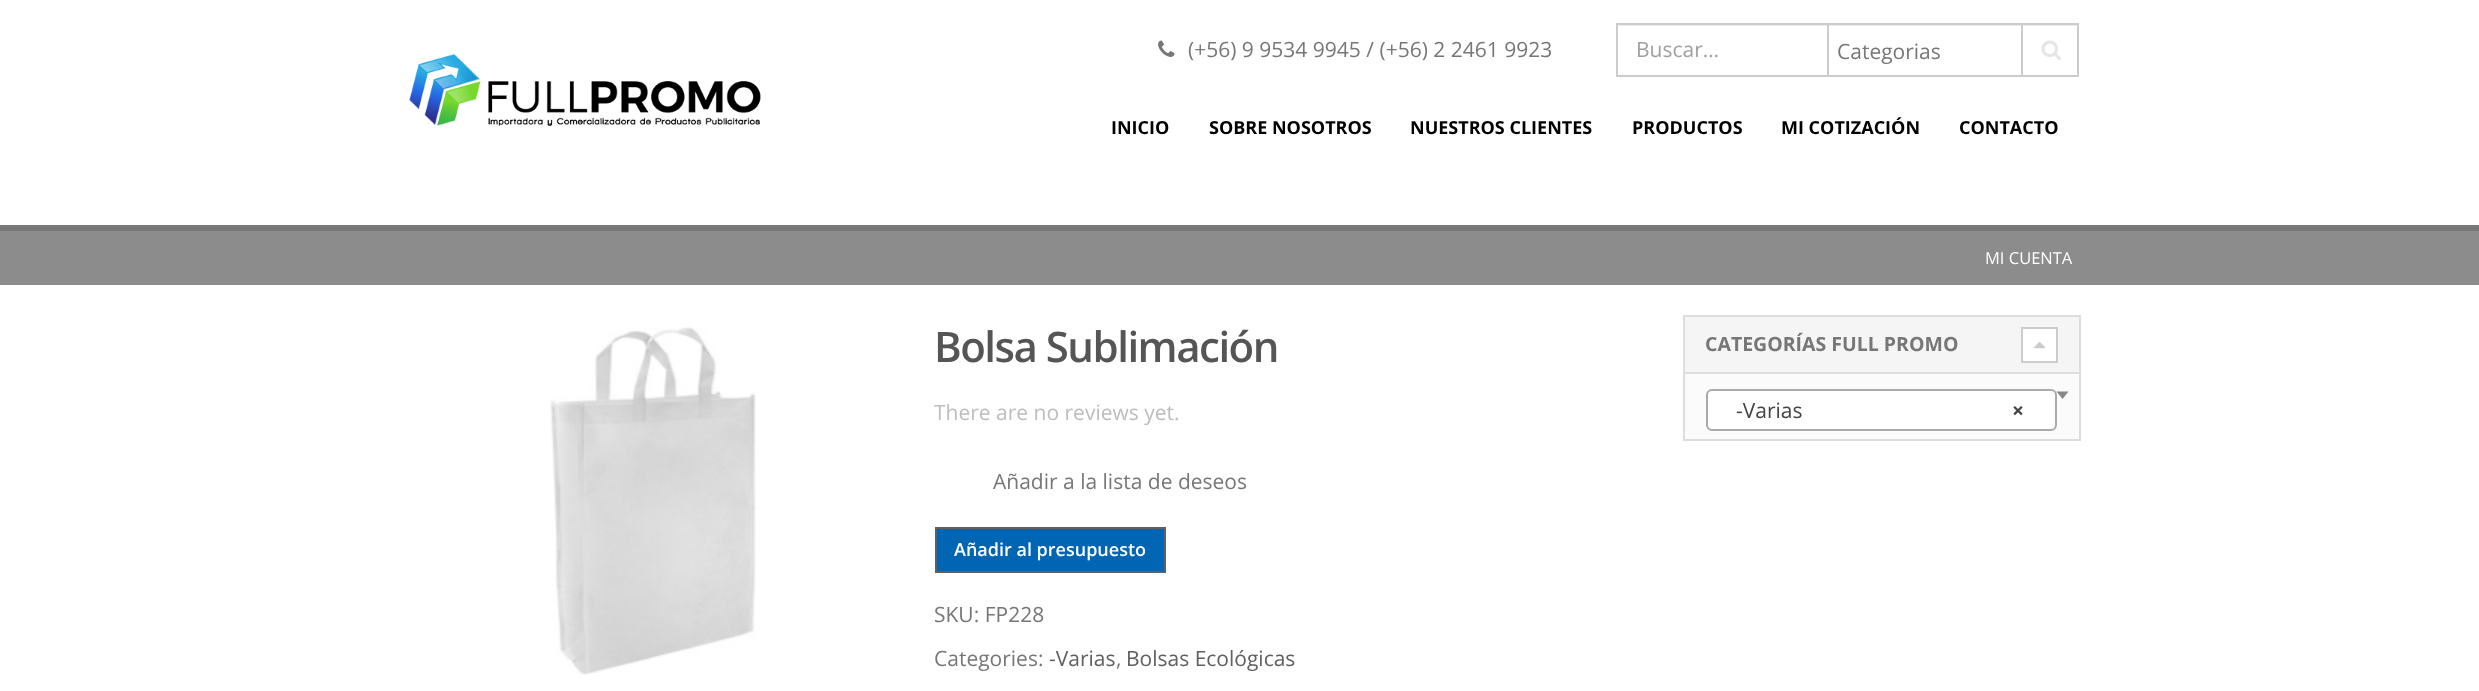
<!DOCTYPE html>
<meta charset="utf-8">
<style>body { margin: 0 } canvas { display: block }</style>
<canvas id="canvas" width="2479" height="691"></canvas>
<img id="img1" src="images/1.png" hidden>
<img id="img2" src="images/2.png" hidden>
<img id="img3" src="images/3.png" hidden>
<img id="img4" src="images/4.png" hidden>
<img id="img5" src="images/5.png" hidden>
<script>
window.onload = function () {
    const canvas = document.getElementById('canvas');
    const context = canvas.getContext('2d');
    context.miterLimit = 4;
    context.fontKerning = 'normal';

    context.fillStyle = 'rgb(255, 255, 255)';
    context.fillRect(0, 0, 2479, 691);
    context.fillStyle = 'rgb(119, 119, 119)';
    context.fillRect(0, 225, 2479, 6);
    context.drawImage(document.getElementById('img1'), 409, 54, 352, 72);
    context.drawImage(document.getElementById('img2'), 1158, 40, 17, 17);
    context.fillStyle = 'rgb(236, 236, 236)';
    context.fillRect(1617, 25, 461, 1);
    context.strokeStyle = 'rgb(204, 204, 204)';
    context.lineWidth = 2;
    context.strokeRect(1617, 24, 461, 52);
    context.fillStyle = 'rgb(204, 204, 204)';
    context.fillRect(2021, 24, 2, 51);
    context.fillRect(1827, 24, 2, 51);
    context.drawImage(document.getElementById('img3'), 2041, 40, 20, 20);
    context.fillStyle = 'rgb(140, 140, 140)';
    context.fillRect(0, 231, 2479, 54);
    context.drawImage(document.getElementById('img4'), 550, 327, 206, 348);
    context.fillStyle = 'rgb(0, 102, 180)';
    context.beginPath();
    context.rect(936, 528, 229, 44);
    context.fill();
    context.strokeStyle = 'rgb(96, 96, 96)';
    context.stroke();
    context.fillStyle = 'rgb(251, 251, 251)';
    context.fillRect(1685, 374, 394, 65);
    context.strokeStyle = 'rgb(221, 221, 221)';
    context.strokeRect(1684, 316, 396, 124);
    context.fillStyle = 'rgb(245, 245, 245)';
    context.fillRect(1685, 317, 394, 55);
    context.fillStyle = 'rgb(221, 221, 221)';
    context.fillRect(1685, 372, 394, 2);
    context.fillStyle = 'rgb(255, 255, 255)';
    context.beginPath();
    context.rect(2022, 328, 35, 34);
    context.fill();
    context.strokeStyle = 'rgb(204, 204, 204)';
    context.stroke();
    context.drawImage(document.getElementById('img5'), 2034, 342, 11, 7);
    context.beginPath();
    context.roundRect(1707, 390, 349, 40, 5);
    context.fill();
    context.strokeStyle = 'rgb(170, 170, 170)';
    context.stroke();
    context.fillStyle = 'rgb(136, 136, 136)';
    context.beginPath();
    context.moveTo(2056.5, 391.5);
    context.lineTo(2068.5, 391.5);
    context.lineTo(2062.5, 399);
    context.closePath();
    context.fill();
    context.font = '21px Open Sans';
    context.fillStyle = 'rgb(119, 119, 119)';
    context.fillText('(+56) 9 9534 9945 / (+56) 2 2461 9923', 1188, 57);
    context.fillStyle = 'rgb(160, 160, 160)';
    context.fillText('Buscar…', 1636, 57);
    context.fillStyle = 'rgb(119, 119, 119)';
    context.fillText('Categorias', 1837, 59);
    context.font = 'bold 18px Open Sans';
    context.fillStyle = 'rgb(0, 0, 0)';
    context.fillText('INICIO', 1111, 134);
    context.fillText('SOBRE NOSOTROS', 1209, 134);
    context.fillText('NUESTROS CLIENTES', 1410, 134);
    context.fillText('PRODUCTOS', 1632, 134);
    context.fillText('MI COTIZACIÓN', 1781, 134);
    context.fillText('CONTACTO', 1959, 134);
    context.font = '16.5px Open Sans';
    context.fillStyle = 'rgb(255, 255, 255)';
    context.fillText('MI CUENTA', 1985, 264);
    context.letterSpacing = '-1.5px';
    context.font = '600 42px Open Sans';
    context.fillStyle = 'rgb(85, 85, 85)';
    context.fillText('Bolsa Sublimación', 934, 362);
    context.letterSpacing = '0px';
    context.font = '21px Open Sans';
    context.fillStyle = 'rgb(189, 189, 189)';
    context.fillText('There are no reviews yet.', 934, 420);
    context.fillStyle = 'rgb(119, 119, 119)';
    context.fillText('Añadir a la lista de deseos', 993, 489);
    context.font = '600 18px Open Sans';
    context.fillStyle = 'rgb(255, 255, 255)';
    context.fillText('Añadir al presupuesto', 954, 556);
    context.font = '21px Open Sans';
    context.fillStyle = 'rgb(119, 119, 119)';
    context.fillText('SKU: FP228', 934, 622);
    context.fillText('Categories:', 934, 666);
    context.fillStyle = 'rgb(96, 96, 96)';
    context.fillText('-Varias', 1049, 666);
    context.fillStyle = 'rgb(119, 119, 119)';
    context.fillText(',', 1116, 666);
    context.fillStyle = 'rgb(96, 96, 96)';
    context.fillText('Bolsas Ecológicas', 1126, 666);
    context.font = 'bold 19.5px Open Sans';
    context.fillStyle = 'rgb(119, 119, 119)';
    context.fillText('CATEGORÍAS FULL PROMO', 1705, 351);
    context.font = '21px Open Sans';
    context.fillStyle = 'rgb(68, 68, 68)';
    context.fillText('-Varias', 1736, 418);
    context.font = 'bold 21px Open Sans';
    context.fillText('×', 2012, 418);
};
</script>
